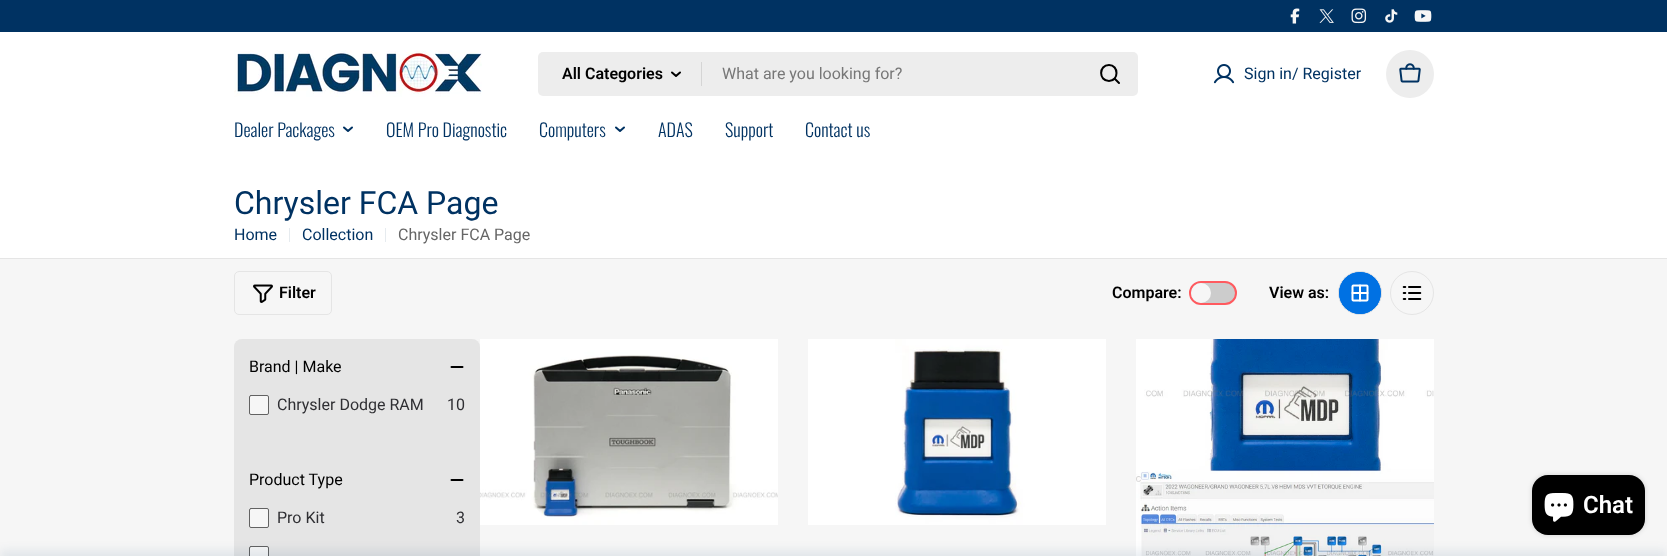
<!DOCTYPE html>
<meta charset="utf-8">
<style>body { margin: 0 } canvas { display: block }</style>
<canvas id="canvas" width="1667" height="556"></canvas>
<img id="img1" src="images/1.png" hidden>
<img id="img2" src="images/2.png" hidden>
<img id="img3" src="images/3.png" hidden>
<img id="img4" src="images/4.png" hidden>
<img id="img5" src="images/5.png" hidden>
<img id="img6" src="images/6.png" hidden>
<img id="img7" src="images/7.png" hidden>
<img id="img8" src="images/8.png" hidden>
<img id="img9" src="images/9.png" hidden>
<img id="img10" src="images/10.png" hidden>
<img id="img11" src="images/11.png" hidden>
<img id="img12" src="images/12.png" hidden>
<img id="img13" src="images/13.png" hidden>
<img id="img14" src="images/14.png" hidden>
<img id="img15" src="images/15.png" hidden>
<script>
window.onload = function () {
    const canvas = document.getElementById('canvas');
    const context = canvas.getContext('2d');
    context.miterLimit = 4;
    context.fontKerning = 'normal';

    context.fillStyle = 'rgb(255, 255, 255)';
    context.fillRect(0, 0, 1667, 556);
    context.fillStyle = 'rgb(0, 50, 98)';
    context.fillRect(0, 0, 1667, 32);
    context.drawImage(document.getElementById('img1'), 1290, 8, 10, 16);
    context.drawImage(document.getElementById('img2'), 1319, 9, 15, 14);
    context.drawImage(document.getElementById('img3'), 1351, 8, 16, 16);
    context.drawImage(document.getElementById('img4'), 1385, 9, 13, 14);
    context.drawImage(document.getElementById('img5'), 1414, 10, 18, 12);
    context.drawImage(document.getElementById('img6'), 234, 50, 248, 47);
    context.fillStyle = 'rgb(237, 237, 237)';
    context.beginPath();
    context.roundRect(538, 52, 600, 44, 5);
    context.fill();
    context.beginPath();
    context.moveTo(680, 72.5);
    context.lineTo(676, 76);
    context.lineTo(672, 72.5);
    context.strokeStyle = 'rgb(0, 0, 0)';
    context.lineWidth = 2;
    context.lineCap = 'round';
    context.lineJoin = 'round';
    context.stroke();
    context.fillStyle = 'rgb(213, 213, 213)';
    context.fillRect(701, 62, 1, 24);
    context.beginPath();
    context.moveTo(1109, 81);
    context.bezierCurveTo(1119, 81, 1119, 65, 1109, 65);
    context.bezierCurveTo(1098.5, 65, 1098.5, 81, 1109, 81);
    context.closePath();
    context.moveTo(1114.5, 78.5);
    context.lineTo(1119, 83);
    context.stroke();
    context.drawImage(document.getElementById('img7'), 1213, 64, 22, 20);
    context.fillStyle = 'rgb(237, 237, 237)';
    context.beginPath();
    context.arc(1410, 74, 24, 0, 2 * Math.PI);
    context.fill();
    context.drawImage(document.getElementById('img8'), 1399, 63, 22, 20);
    context.beginPath();
    context.moveTo(352, 127.5);
    context.lineTo(348, 131);
    context.lineTo(344, 127.5);
    context.strokeStyle = 'rgb(0, 50, 98)';
    context.stroke();
    context.beginPath();
    context.moveTo(624, 127.5);
    context.lineTo(620, 131);
    context.lineTo(616, 127.5);
    context.stroke();
    context.fillStyle = 'rgb(230, 235, 239)';
    context.fillRect(289, 228, 1, 14);
    context.fillRect(385, 228, 1, 14);
    context.fillStyle = 'rgb(229, 229, 229)';
    context.fillRect(0, 258, 1667, 1);
    context.fillStyle = 'rgb(246, 246, 246)';
    context.fillRect(0, 259, 1667, 297);
    context.beginPath();
    context.roundRect(234.5, 271.5, 97, 43, 4.5);
    context.strokeStyle = 'rgb(229, 229, 229)';
    context.lineWidth = 1;
    context.lineJoin = 'miter';
    context.stroke();
    context.drawImage(document.getElementById('img9'), 253, 284, 20, 19);
    context.fillStyle = 'rgb(204, 204, 204)';
    context.beginPath();
    context.roundRect(1190, 282, 46, 22, 11);
    context.fill();
    context.strokeStyle = 'rgb(255, 90, 95)';
    context.lineWidth = 2;
    context.stroke();
    context.fillStyle = 'rgb(246, 246, 246)';
    context.beginPath();
    context.arc(1201, 293, 10, 0, 2 * Math.PI);
    context.fill();
    context.fillStyle = 'rgb(0, 113, 227)';
    context.beginPath();
    context.arc(1360, 293, 21.5, 0, 2 * Math.PI);
    context.fill();
    context.strokeStyle = 'rgb(229, 229, 229)';
    context.lineWidth = 1;
    context.stroke();
    context.save();
    context.beginPath();
    context.roundRect(1339, 272, 42, 42, 21);
    context.clip();
    context.beginPath();
    context.roundRect(1338, 271, 43, 44, 21.5);
    context.fill();
    context.restore();
    context.drawImage(document.getElementById('img10'), 1351, 284, 18, 18);
    context.beginPath();
    context.arc(1412, 293, 21.5, 0, 2 * Math.PI);
    context.stroke();
    context.drawImage(document.getElementById('img11'), 1402, 286, 20, 14);
    context.fillStyle = 'rgb(229, 229, 229)';
    context.beginPath();
    context.roundRect(234, 339, 246, 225, 8);
    context.fill();
    context.beginPath();
    context.moveTo(451.5, 367);
    context.lineTo(462.5, 367);
    context.moveTo(451.5, 367);
    context.lineTo(462.5, 367);
    context.strokeStyle = 'rgb(0, 0, 0)';
    context.lineWidth = 2;
    context.lineJoin = 'round';
    context.stroke();
    context.fillStyle = 'rgb(246, 246, 246)';
    context.beginPath();
    context.roundRect(249.5, 395.5, 19, 19, 1.5);
    context.fill();
    context.strokeStyle = 'rgb(98, 98, 98)';
    context.lineWidth = 1;
    context.lineJoin = 'miter';
    context.stroke();
    context.beginPath();
    context.moveTo(451.5, 480);
    context.lineTo(462.5, 480);
    context.moveTo(451.5, 480);
    context.lineTo(462.5, 480);
    context.strokeStyle = 'rgb(0, 0, 0)';
    context.lineWidth = 2;
    context.lineJoin = 'round';
    context.stroke();
    context.beginPath();
    context.roundRect(249.5, 508.5, 19, 19, 1.5);
    context.fill();
    context.strokeStyle = 'rgb(98, 98, 98)';
    context.lineWidth = 1;
    context.lineJoin = 'miter';
    context.stroke();
    context.beginPath();
    context.roundRect(249.5, 546.5, 19, 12, 1.5);
    context.fill();
    context.stroke();
    context.drawImage(document.getElementById('img12'), 480, 339, 298, 186);
    context.drawImage(document.getElementById('img13'), 808, 339, 298, 186);
    context.drawImage(document.getElementById('img14'), 1136, 339, 298, 217);
    context.fillStyle = 'rgba(0, 50, 98, 0.08)';
    context.filter = 'blur(5px)';
    context.beginPath();
    context.rect(0, 550, 1667, 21);
    context.fill();
    context.filter = 'none';
    context.fillStyle = 'rgba(0, 0, 0, 0.15)';
    context.filter = 'blur(2.5px)';
    context.beginPath();
    context.roundRect(1532, 475, 113, 60, 16);
    context.fill();
    context.filter = 'none';
    context.fillStyle = 'rgb(0, 0, 0)';
    context.beginPath();
    context.roundRect(1532, 475, 113, 60, 16);
    context.fill();
    context.drawImage(document.getElementById('img15'), 1544, 493, 30, 29);
    context.font = '600 16px Roboto';
    context.fillText('All Categories', 562, 79);
    context.font = '16px Roboto';
    context.fillStyle = 'rgb(119, 119, 119)';
    context.fillText('What are you looking for?', 722, 79);
    context.fillStyle = 'rgb(0, 50, 98)';
    context.fillText('Sign in/ Register', 1244, 79);
    context.font = '300 18px Oswald';
    context.fillText('Dealer Packages', 234, 137);
    context.fillText('OEM Pro Diagnostic', 386, 137);
    context.fillText('Computers', 539, 137);
    context.fillText('ADAS', 658, 137);
    context.fillText('Support', 725, 137);
    context.fillText('Contact us', 805, 137);
    context.font = '32px Roboto';
    context.fillText('Chrysler FCA Page', 234, 214);
    context.font = '16px Roboto';
    context.fillText('Home', 234, 240);
    context.fillText('Collection', 302, 240);
    context.fillStyle = 'rgb(102, 102, 102)';
    context.fillText('Chrysler FCA Page', 398, 240);
    context.font = '600 16px Roboto';
    context.fillStyle = 'rgb(0, 0, 0)';
    context.fillText('Filter', 279, 298);
    context.fillText('Compare:', 1112, 298);
    context.fillText('View as:', 1269, 298);
    context.font = '16px Roboto';
    context.fillText('Brand | Make', 249, 372);
    context.fillStyle = 'rgb(47, 47, 51)';
    context.fillText('Chrysler Dodge RAM', 277, 410);
    context.fillText('10', 447, 410);
    context.fillStyle = 'rgb(0, 0, 0)';
    context.fillText('Product Type', 249, 485);
    context.fillStyle = 'rgb(47, 47, 51)';
    context.fillText('Pro Kit', 277, 523);
    context.fillText('3', 456, 523);
    context.font = '600 24px Roboto';
    context.fillStyle = 'rgb(255, 255, 255)';
    context.fillText('Chat', 1583, 513);
};
</script>
